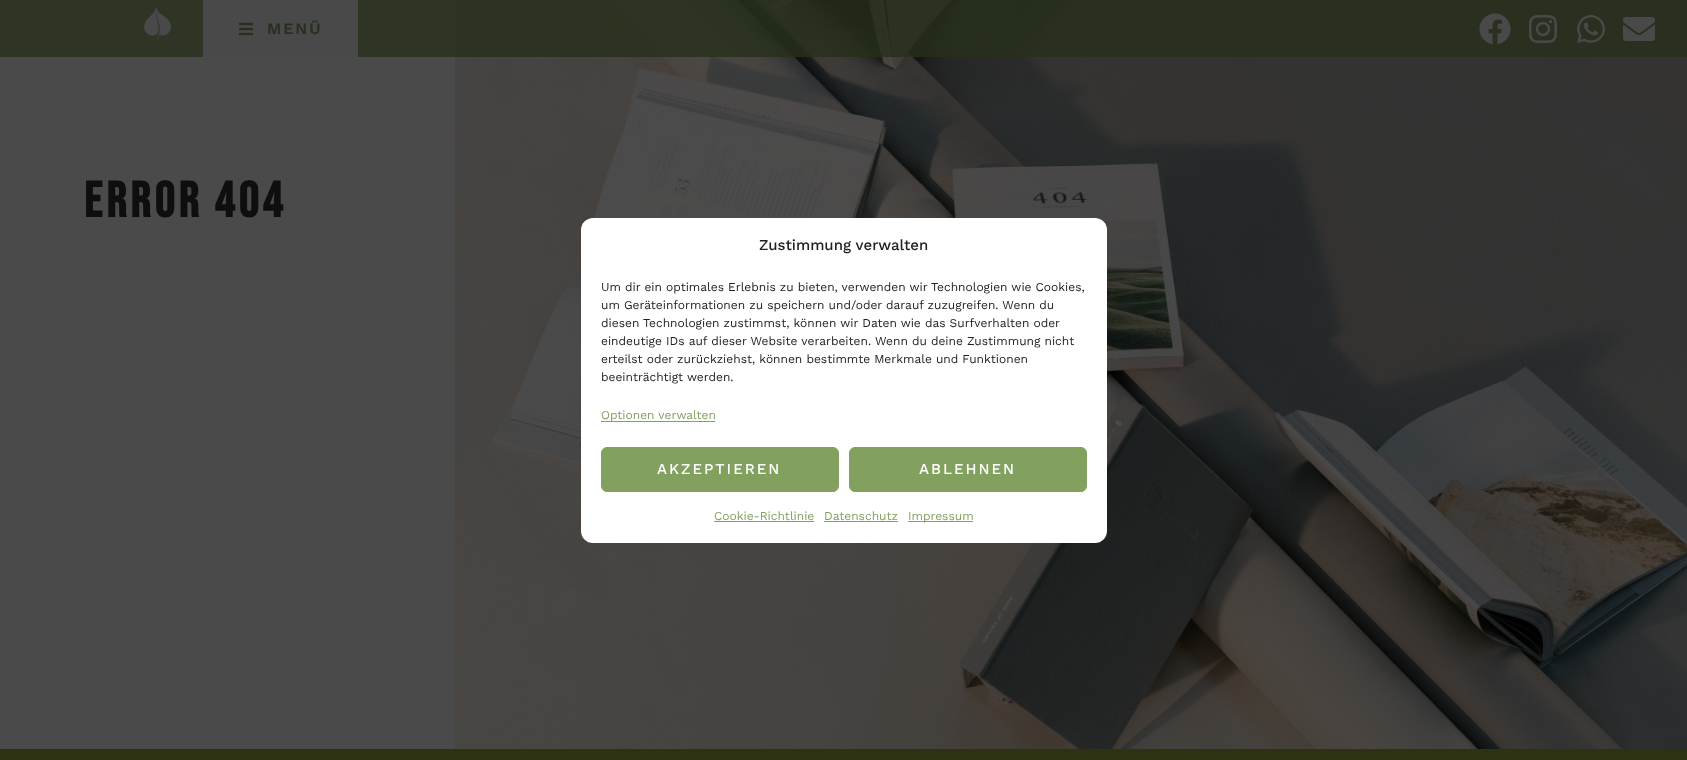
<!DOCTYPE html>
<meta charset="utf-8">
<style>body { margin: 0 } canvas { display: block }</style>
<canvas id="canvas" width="1687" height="760"></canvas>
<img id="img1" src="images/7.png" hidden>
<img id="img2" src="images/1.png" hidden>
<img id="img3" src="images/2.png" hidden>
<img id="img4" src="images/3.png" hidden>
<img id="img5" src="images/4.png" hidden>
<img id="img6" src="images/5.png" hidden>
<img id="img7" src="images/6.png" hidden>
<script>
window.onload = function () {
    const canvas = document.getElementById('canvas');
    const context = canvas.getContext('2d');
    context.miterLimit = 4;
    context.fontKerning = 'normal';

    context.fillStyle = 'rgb(74, 74, 74)';
    context.fillRect(0, 0, 1687, 760);
    context.drawImage(document.getElementById('img1'), 455, 0, 1232, 749);
    context.fillStyle = 'rgba(39, 48, 28, 0.8)';
    context.fillRect(0, 0, 1687, 57);
    context.drawImage(document.getElementById('img2'), 144, 7, 27, 36);
    context.fillStyle = 'rgb(73, 73, 73)';
    context.fillRect(203, 0, 155, 57);
    context.drawImage(document.getElementById('img3'), 239, 22, 14, 14);
    context.drawImage(document.getElementById('img4'), 1479, 13, 32, 32);
    context.drawImage(document.getElementById('img5'), 1529, 15, 28, 28);
    context.drawImage(document.getElementById('img6'), 1577, 15, 28, 28);
    context.drawImage(document.getElementById('img7'), 1623, 17, 32, 24);
    context.fillStyle = 'rgb(255, 255, 255)';
    context.beginPath();
    context.roundRect(581, 218, 526, 325, 12);
    context.fill();
    context.fillStyle = 'rgb(131, 161, 94)';
    context.fillRect(601, 421, 114, 1);
    context.beginPath();
    context.roundRect(601.5, 447.5, 237, 44, 5.5);
    context.fill();
    context.strokeStyle = 'rgb(131, 161, 94)';
    context.stroke();
    context.beginPath();
    context.roundRect(849.5, 447.5, 237, 44, 5.5);
    context.fill();
    context.stroke();
    context.fillRect(714, 521, 100, 1);
    context.fillRect(824, 521, 74, 1);
    context.fillRect(908, 521, 65, 1);
    context.fillStyle = 'rgb(45, 50, 18)';
    context.fillRect(0, 749, 1687, 11);
    context.letterSpacing = '2px';
    context.font = '600 16px Work Sans';
    context.fillStyle = 'rgb(39, 48, 28)';
    context.fillText('MENÜ', 267, 34);
    context.letterSpacing = '4px';
    context.font = 'bold 50px Bebas Neue';
    context.fillStyle = 'rgb(14, 14, 14)';
    context.fillText('ERROR 404', 84, 217);
    context.letterSpacing = '0px';
    context.font = '500 15px Work Sans';
    context.fillStyle = 'rgb(34, 34, 34)';
    context.fillText('Zustimmung verwalten', 759, 250);
    context.font = '12px Work Sans';
    context.fillText('Um dir ein optimales Erlebnis zu bieten, verwenden wir Technologien wie Cookies,', 601, 291);
    context.fillText('um Geräteinformationen zu speichern und/oder darauf zuzugreifen. Wenn du', 601, 309);
    context.fillText('diesen Technologien zustimmst, können wir Daten wie das Surfverhalten oder', 601, 327);
    context.fillText('eindeutige IDs auf dieser Website verarbeiten. Wenn du deine Zustimmung nicht', 601, 345);
    context.fillText('erteilst oder zurückziehst, können bestimmte Merkmale und Funktionen', 601, 363);
    context.fillText('beeinträchtigt werden.', 601, 381);
    context.fillStyle = 'rgb(131, 161, 94)';
    context.fillText('Optionen verwalten', 601, 419);
    context.letterSpacing = '2px';
    context.font = '500 15px Work Sans';
    context.fillStyle = 'rgb(255, 255, 255)';
    context.fillText('AKZEPTIEREN', 657, 474);
    context.fillText('ABLEHNEN', 919, 474);
    context.letterSpacing = '0px';
    context.font = '12px Work Sans';
    context.fillStyle = 'rgb(131, 161, 94)';
    context.fillText('Cookie-Richtlinie', 714, 520);
    context.fillText('Datenschutz', 824, 520);
    context.fillText('Impressum', 908, 520);
};
</script>
